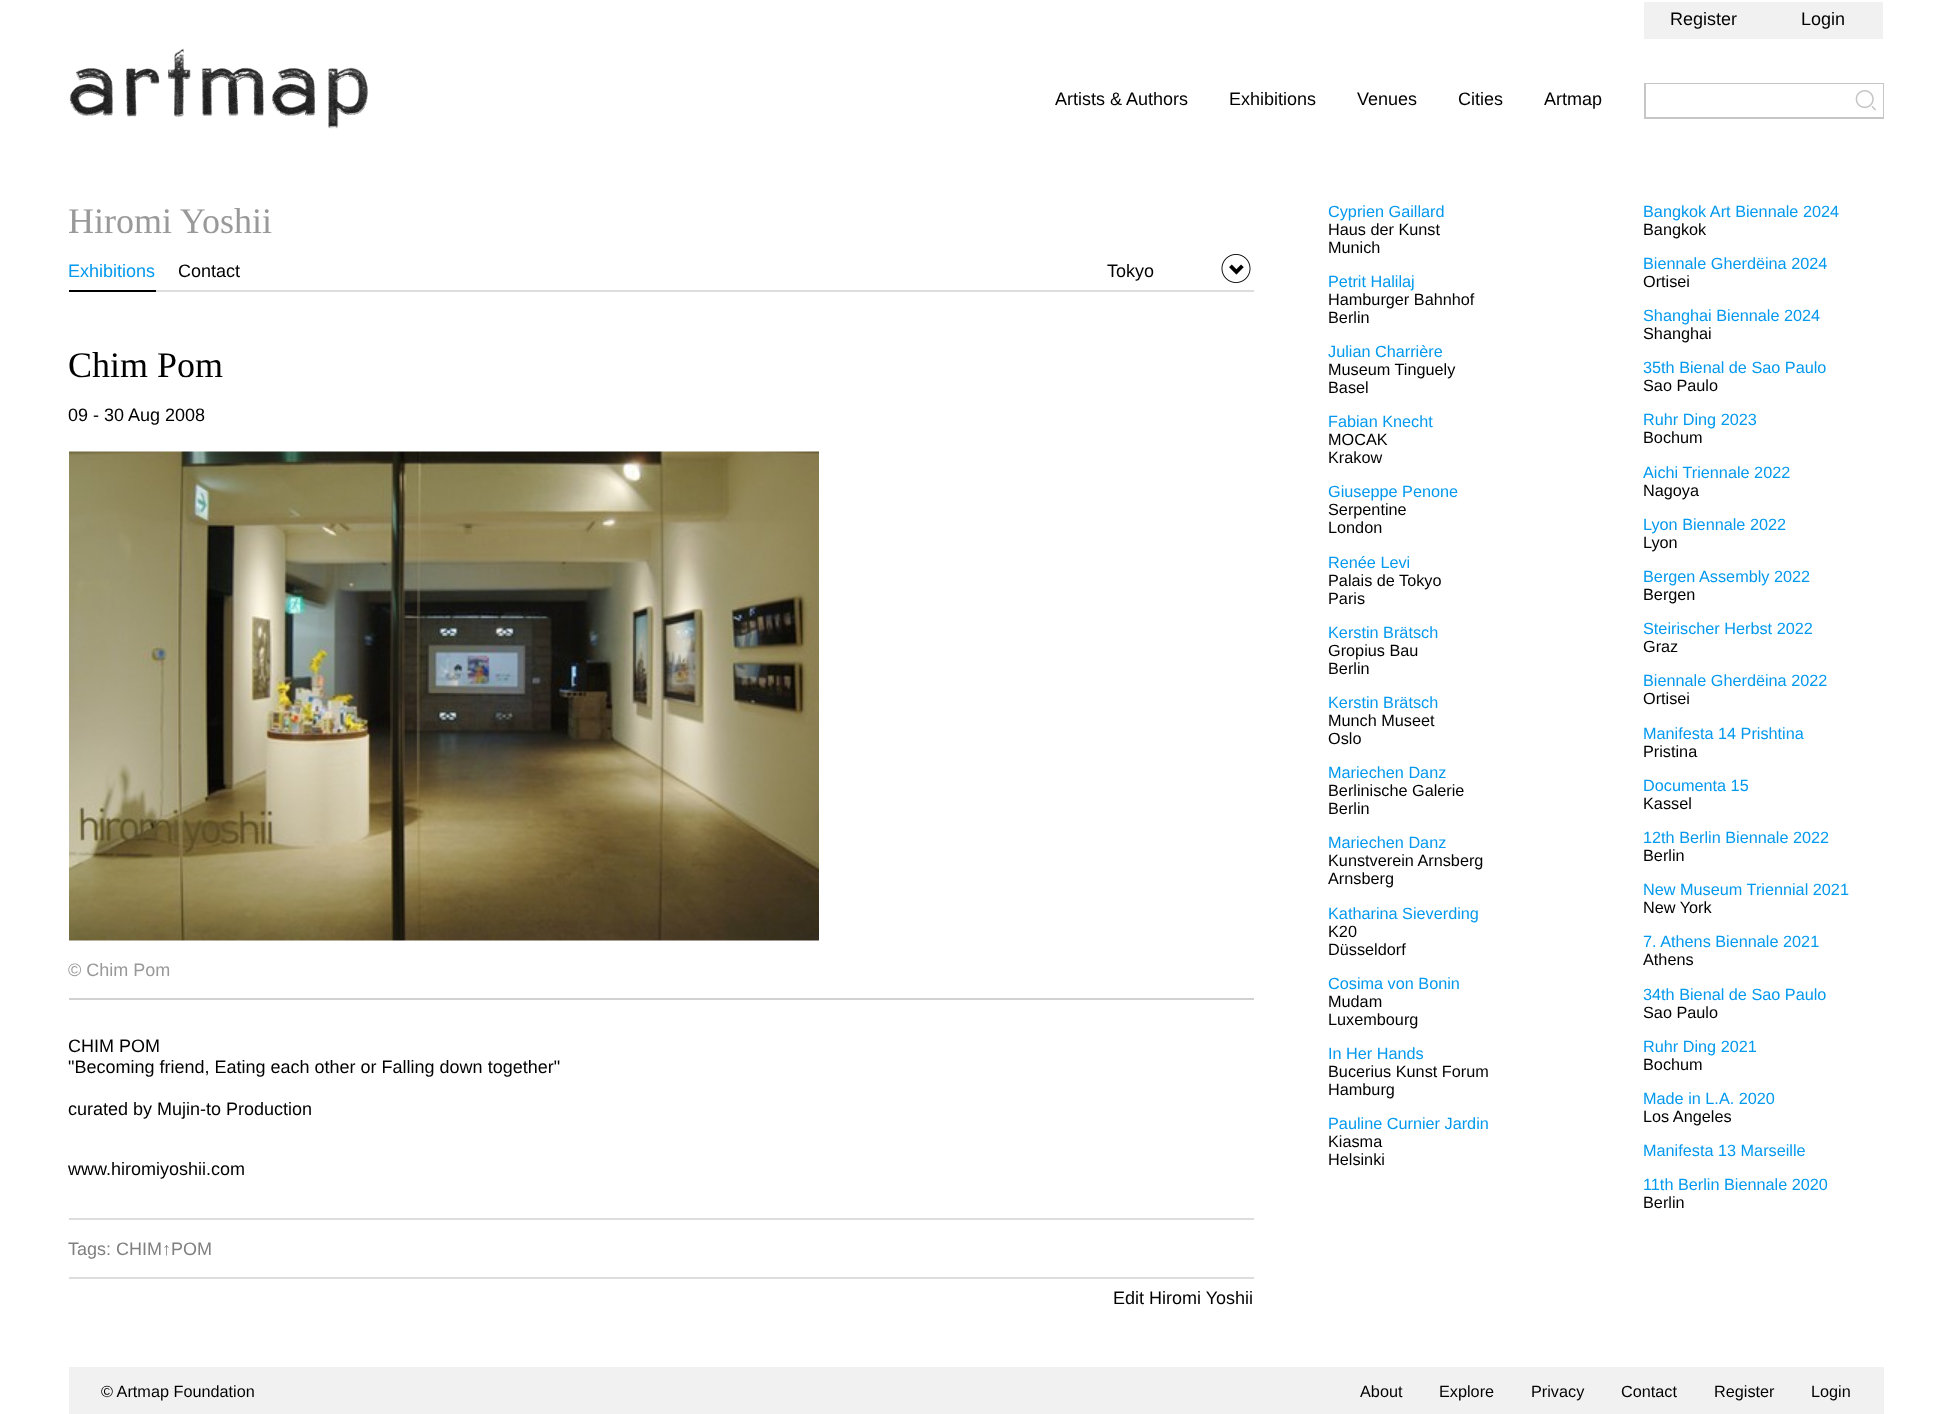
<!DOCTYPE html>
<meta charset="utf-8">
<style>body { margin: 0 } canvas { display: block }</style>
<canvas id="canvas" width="1951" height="1414"></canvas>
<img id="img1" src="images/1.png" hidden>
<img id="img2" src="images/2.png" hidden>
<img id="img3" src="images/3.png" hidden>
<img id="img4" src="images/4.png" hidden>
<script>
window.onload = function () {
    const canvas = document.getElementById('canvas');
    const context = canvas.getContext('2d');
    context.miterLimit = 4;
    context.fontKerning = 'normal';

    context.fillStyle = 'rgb(255, 255, 255)';
    context.fillRect(0, 0, 1951, 1414);
    context.fillStyle = 'rgb(241, 241, 241)';
    context.fillRect(1644, 2, 239, 37);
    context.drawImage(document.getElementById('img1'), 69, 48, 300, 81);
    context.strokeStyle = 'rgb(198, 198, 198)';
    context.lineWidth = 2;
    context.strokeRect(1645, 84, 238, 34);
    context.fillStyle = 'rgb(255, 255, 255)';
    context.fillRect(1646, 84, 208, 1);
    context.fillRect(1854, 84, 29, 33);
    context.drawImage(document.getElementById('img2'), 1855, 90, 21, 21);
    context.fillStyle = 'rgb(221, 221, 221)';
    context.fillRect(156, 290, 1098, 2);
    context.fillStyle = 'rgb(0, 0, 0)';
    context.fillRect(69, 290, 87, 2);
    context.drawImage(document.getElementById('img3'), 1221, 254, 30, 29);
    context.drawImage(document.getElementById('img4'), 69, 451, 750, 490);
    context.fillStyle = 'rgb(209, 209, 209)';
    context.fillRect(69, 998, 1185, 2);
    context.fillStyle = 'rgb(221, 221, 221)';
    context.fillRect(69, 1218, 1185, 2);
    context.fillRect(69, 1277, 1185, 2);
    context.fillStyle = 'rgb(241, 241, 241)';
    context.fillRect(69, 1367, 1815, 47);
    context.font = '18px Liberation Sans';
    context.fillStyle = 'rgb(0, 0, 0)';
    context.fillText('Register', 1670, 25);
    context.fillText('Login', 1801, 25);
    context.fillText('Artists & Authors', 1055, 105);
    context.fillText('Exhibitions', 1229, 105);
    context.fillText('Venues', 1357, 105);
    context.fillText('Cities', 1458, 105);
    context.fillText('Artmap', 1544, 105);
    context.font = '36px Liberation Serif';
    context.fillStyle = 'rgb(153, 153, 153)';
    context.fillText('Hiromi Yoshii', 68, 233);
    context.font = '18px Liberation Sans';
    context.fillStyle = 'rgb(3, 153, 238)';
    context.fillText('Exhibitions', 68, 277);
    context.fillStyle = 'rgb(0, 0, 0)';
    context.fillText('Contact', 178, 277);
    context.fillText('Tokyo', 1107, 277);
    context.font = '36px Liberation Serif';
    context.fillText('Chim Pom', 68, 377);
    context.font = '18px Liberation Sans';
    context.fillText('09 - 30 Aug 2008', 68, 421);
    context.fillStyle = 'rgb(153, 153, 153)';
    context.fillText('© Chim Pom', 68, 976);
    context.fillStyle = 'rgb(0, 0, 0)';
    context.fillText('CHIM POM', 68, 1052);
    context.fillText('"Becoming friend, Eating each other or Falling down together"', 68, 1073);
    context.fillText('curated by Mujin-to Production', 68, 1115);
    context.fillText('www.hiromiyoshii.com', 68, 1175);
    context.fillStyle = 'rgb(128, 128, 128)';
    context.fillText('Tags: CHIM↑POM', 68, 1255);
    context.fillStyle = 'rgb(0, 0, 0)';
    context.fillText('Edit Hiromi Yoshii', 1113, 1304);
    context.font = '16.25px Liberation Sans';
    context.fillStyle = 'rgb(3, 153, 238)';
    context.fillText('Cyprien Gaillard', 1328, 217);
    context.fillStyle = 'rgb(0, 0, 0)';
    context.fillText('Haus der Kunst', 1328, 235);
    context.fillText('Munich', 1328, 253);
    context.fillStyle = 'rgb(3, 153, 238)';
    context.fillText('Petrit Halilaj', 1328, 287);
    context.fillStyle = 'rgb(0, 0, 0)';
    context.fillText('Hamburger Bahnhof', 1328, 305);
    context.fillText('Berlin', 1328, 323);
    context.fillStyle = 'rgb(3, 153, 238)';
    context.fillText('Julian Charrière', 1328, 357);
    context.fillStyle = 'rgb(0, 0, 0)';
    context.fillText('Museum Tinguely', 1328, 375);
    context.fillText('Basel', 1328, 393);
    context.fillStyle = 'rgb(3, 153, 238)';
    context.fillText('Fabian Knecht', 1328, 427);
    context.fillStyle = 'rgb(0, 0, 0)';
    context.fillText('MOCAK', 1328, 445);
    context.fillText('Krakow', 1328, 463);
    context.fillStyle = 'rgb(3, 153, 238)';
    context.fillText('Giuseppe Penone', 1328, 497);
    context.fillStyle = 'rgb(0, 0, 0)';
    context.fillText('Serpentine', 1328, 515);
    context.fillText('London', 1328, 533);
    context.fillStyle = 'rgb(3, 153, 238)';
    context.fillText('Renée Levi', 1328, 568);
    context.fillStyle = 'rgb(0, 0, 0)';
    context.fillText('Palais de Tokyo', 1328, 586);
    context.fillText('Paris', 1328, 604);
    context.fillStyle = 'rgb(3, 153, 238)';
    context.fillText('Kerstin Brätsch', 1328, 638);
    context.fillStyle = 'rgb(0, 0, 0)';
    context.fillText('Gropius Bau', 1328, 656);
    context.fillText('Berlin', 1328, 674);
    context.fillStyle = 'rgb(3, 153, 238)';
    context.fillText('Kerstin Brätsch', 1328, 708);
    context.fillStyle = 'rgb(0, 0, 0)';
    context.fillText('Munch Museet', 1328, 726);
    context.fillText('Oslo', 1328, 744);
    context.fillStyle = 'rgb(3, 153, 238)';
    context.fillText('Mariechen Danz', 1328, 778);
    context.fillStyle = 'rgb(0, 0, 0)';
    context.fillText('Berlinische Galerie', 1328, 796);
    context.fillText('Berlin', 1328, 814);
    context.fillStyle = 'rgb(3, 153, 238)';
    context.fillText('Mariechen Danz', 1328, 848);
    context.fillStyle = 'rgb(0, 0, 0)';
    context.fillText('Kunstverein Arnsberg', 1328, 866);
    context.fillText('Arnsberg', 1328, 884);
    context.fillStyle = 'rgb(3, 153, 238)';
    context.fillText('Katharina Sieverding', 1328, 919);
    context.fillStyle = 'rgb(0, 0, 0)';
    context.fillText('K20', 1328, 937);
    context.fillText('Düsseldorf', 1328, 955);
    context.fillStyle = 'rgb(3, 153, 238)';
    context.fillText('Cosima von Bonin', 1328, 989);
    context.fillStyle = 'rgb(0, 0, 0)';
    context.fillText('Mudam', 1328, 1007);
    context.fillText('Luxembourg', 1328, 1025);
    context.fillStyle = 'rgb(3, 153, 238)';
    context.fillText('In Her Hands', 1328, 1059);
    context.fillStyle = 'rgb(0, 0, 0)';
    context.fillText('Bucerius Kunst Forum', 1328, 1077);
    context.fillText('Hamburg', 1328, 1095);
    context.fillStyle = 'rgb(3, 153, 238)';
    context.fillText('Pauline Curnier Jardin', 1328, 1129);
    context.fillStyle = 'rgb(0, 0, 0)';
    context.fillText('Kiasma', 1328, 1147);
    context.fillText('Helsinki', 1328, 1165);
    context.fillStyle = 'rgb(3, 153, 238)';
    context.fillText('Bangkok Art Biennale 2024', 1643, 217);
    context.fillStyle = 'rgb(0, 0, 0)';
    context.fillText('Bangkok', 1643, 235);
    context.fillStyle = 'rgb(3, 153, 238)';
    context.fillText('Biennale Gherdëina 2024', 1643, 269);
    context.fillStyle = 'rgb(0, 0, 0)';
    context.fillText('Ortisei', 1643, 287);
    context.fillStyle = 'rgb(3, 153, 238)';
    context.fillText('Shanghai Biennale 2024', 1643, 321);
    context.fillStyle = 'rgb(0, 0, 0)';
    context.fillText('Shanghai', 1643, 339);
    context.fillStyle = 'rgb(3, 153, 238)';
    context.fillText('35th Bienal de Sao Paulo', 1643, 373);
    context.fillStyle = 'rgb(0, 0, 0)';
    context.fillText('Sao Paulo', 1643, 391);
    context.fillStyle = 'rgb(3, 153, 238)';
    context.fillText('Ruhr Ding 2023', 1643, 425);
    context.fillStyle = 'rgb(0, 0, 0)';
    context.fillText('Bochum', 1643, 443);
    context.fillStyle = 'rgb(3, 153, 238)';
    context.fillText('Aichi Triennale 2022', 1643, 478);
    context.fillStyle = 'rgb(0, 0, 0)';
    context.fillText('Nagoya', 1643, 496);
    context.fillStyle = 'rgb(3, 153, 238)';
    context.fillText('Lyon Biennale 2022', 1643, 530);
    context.fillStyle = 'rgb(0, 0, 0)';
    context.fillText('Lyon', 1643, 548);
    context.fillStyle = 'rgb(3, 153, 238)';
    context.fillText('Bergen Assembly 2022', 1643, 582);
    context.fillStyle = 'rgb(0, 0, 0)';
    context.fillText('Bergen', 1643, 600);
    context.fillStyle = 'rgb(3, 153, 238)';
    context.fillText('Steirischer Herbst 2022', 1643, 634);
    context.fillStyle = 'rgb(0, 0, 0)';
    context.fillText('Graz', 1643, 652);
    context.fillStyle = 'rgb(3, 153, 238)';
    context.fillText('Biennale Gherdëina 2022', 1643, 686);
    context.fillStyle = 'rgb(0, 0, 0)';
    context.fillText('Ortisei', 1643, 704);
    context.fillStyle = 'rgb(3, 153, 238)';
    context.fillText('Manifesta 14 Prishtina', 1643, 739);
    context.fillStyle = 'rgb(0, 0, 0)';
    context.fillText('Pristina', 1643, 757);
    context.fillStyle = 'rgb(3, 153, 238)';
    context.fillText('Documenta 15', 1643, 791);
    context.fillStyle = 'rgb(0, 0, 0)';
    context.fillText('Kassel', 1643, 809);
    context.fillStyle = 'rgb(3, 153, 238)';
    context.fillText('12th Berlin Biennale 2022', 1643, 843);
    context.fillStyle = 'rgb(0, 0, 0)';
    context.fillText('Berlin', 1643, 861);
    context.fillStyle = 'rgb(3, 153, 238)';
    context.fillText('New Museum Triennial 2021', 1643, 895);
    context.fillStyle = 'rgb(0, 0, 0)';
    context.fillText('New York', 1643, 913);
    context.fillStyle = 'rgb(3, 153, 238)';
    context.fillText('7. Athens Biennale 2021', 1643, 947);
    context.fillStyle = 'rgb(0, 0, 0)';
    context.fillText('Athens', 1643, 965);
    context.fillStyle = 'rgb(3, 153, 238)';
    context.fillText('34th Bienal de Sao Paulo', 1643, 1000);
    context.fillStyle = 'rgb(0, 0, 0)';
    context.fillText('Sao Paulo', 1643, 1018);
    context.fillStyle = 'rgb(3, 153, 238)';
    context.fillText('Ruhr Ding 2021', 1643, 1052);
    context.fillStyle = 'rgb(0, 0, 0)';
    context.fillText('Bochum', 1643, 1070);
    context.fillStyle = 'rgb(3, 153, 238)';
    context.fillText('Made in L.A. 2020', 1643, 1104);
    context.fillStyle = 'rgb(0, 0, 0)';
    context.fillText('Los Angeles', 1643, 1122);
    context.fillStyle = 'rgb(3, 153, 238)';
    context.fillText('Manifesta 13 Marseille', 1643, 1156);
    context.fillText('11th Berlin Biennale 2020', 1643, 1190);
    context.fillStyle = 'rgb(0, 0, 0)';
    context.fillText('Berlin', 1643, 1208);
    context.fillText('© Artmap Foundation', 101, 1397);
    context.fillText('About', 1360, 1397);
    context.fillText('Explore', 1439, 1397);
    context.fillText('Privacy', 1531, 1397);
    context.fillText('Contact', 1621, 1397);
    context.fillText('Register', 1714, 1397);
    context.fillText('Login', 1811, 1397);
};
</script>
